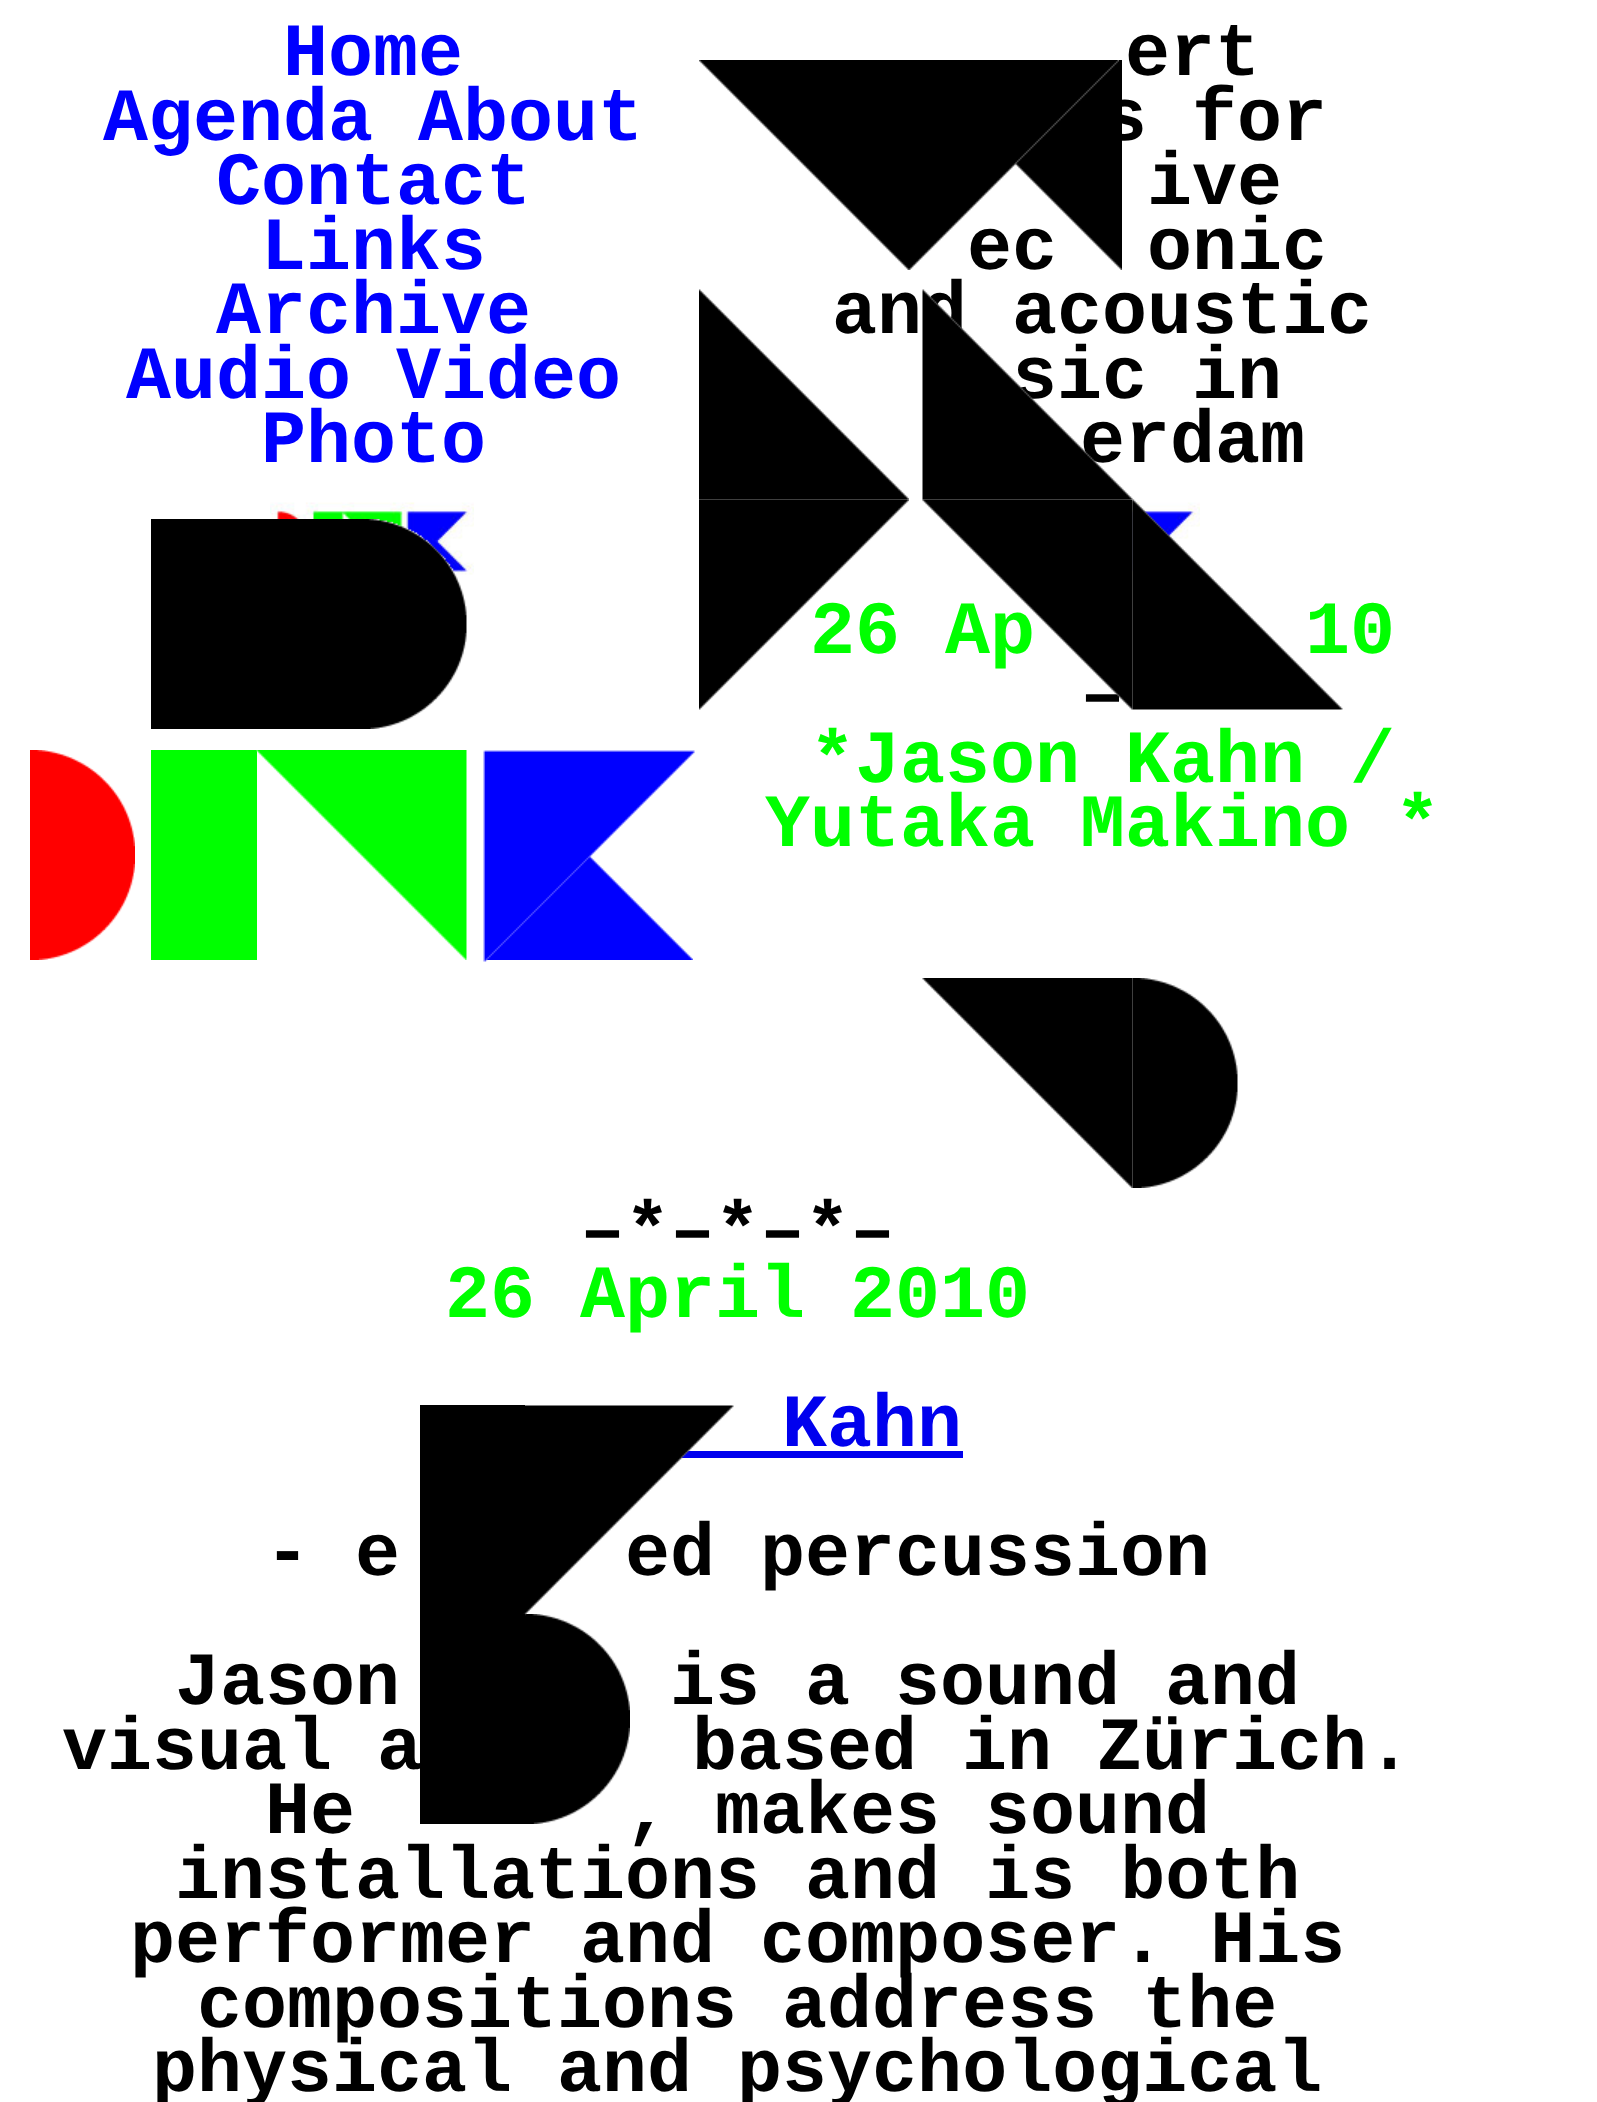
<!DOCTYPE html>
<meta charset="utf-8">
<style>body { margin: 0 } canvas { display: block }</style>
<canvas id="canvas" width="1597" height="2102"></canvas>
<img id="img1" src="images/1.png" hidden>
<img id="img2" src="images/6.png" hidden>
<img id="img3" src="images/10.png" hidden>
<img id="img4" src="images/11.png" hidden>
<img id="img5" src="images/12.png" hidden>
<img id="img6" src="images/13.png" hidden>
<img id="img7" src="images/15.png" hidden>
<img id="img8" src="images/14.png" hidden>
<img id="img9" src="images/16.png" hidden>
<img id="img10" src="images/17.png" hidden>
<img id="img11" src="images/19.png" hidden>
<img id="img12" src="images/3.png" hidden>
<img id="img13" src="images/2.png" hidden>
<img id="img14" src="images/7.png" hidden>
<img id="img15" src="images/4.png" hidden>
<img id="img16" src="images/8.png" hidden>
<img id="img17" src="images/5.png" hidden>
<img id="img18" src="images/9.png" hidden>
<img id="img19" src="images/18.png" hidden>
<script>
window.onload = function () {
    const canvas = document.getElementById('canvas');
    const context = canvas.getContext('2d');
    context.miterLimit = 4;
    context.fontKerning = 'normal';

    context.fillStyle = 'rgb(255, 255, 255)';
    context.fillRect(0, 0, 1597, 2102);
    context.drawImage(document.getElementById('img1'), 699, 60, 210, 210);
    context.drawImage(document.getElementById('img2'), 270, 502, 204, 73);
    context.fillStyle = 'rgb(0, 0, 0)';
    context.fillRect(151, 519, 211, 210);
    context.drawImage(document.getElementById('img3'), 362, 519, 105, 210);
    context.drawImage(document.getElementById('img4'), 996, 502, 204, 73);
    context.drawImage(document.getElementById('img5'), 30, 750, 105, 210);
    context.fillStyle = 'rgb(0, 255, 0)';
    context.fillRect(151, 750, 106, 210);
    context.drawImage(document.getElementById('img6'), 256, 750, 211, 210);
    context.drawImage(document.getElementById('img7'), 485, 856, 208, 104);
    context.drawImage(document.getElementById('img8'), 483, 750, 212, 212);
    context.drawImage(document.getElementById('img9'), 922, 978, 211, 210);
    context.drawImage(document.getElementById('img10'), 1132, 978, 106, 210);
    context.fillStyle = 'rgb(0, 0, 238)';
    context.fillRect(680, 1451, 283, 7);
    context.fillStyle = 'rgb(0, 0, 0)';
    context.fillRect(420, 1405, 105, 209);
    context.drawImage(document.getElementById('img11'), 525, 1614, 105, 210);
    context.font = 'bold 75px Liberation Mono';
    context.fillStyle = 'rgb(0, 0, 255)';
    context.fillText('Home', 283, 75);
    context.fillText('Agenda About', 103, 140);
    context.fillText('Contact', 216, 204);
    context.fillText('Links', 261, 269);
    context.fillText('Archive', 216, 333);
    context.fillText('Audio Video', 126, 398);
    context.fillText('Photo', 261, 462);
    context.fillStyle = 'rgb(0, 0, 0)';
    context.fillText('ert', 1125, 75);
    context.fillText('s for', 1102, 140);
    context.fillText('ive', 1147, 204);
    context.fillText('ec', 967, 269);
    context.fillText('onic', 1147, 269);
    context.fillText('and acoustic', 832, 333);
    context.fillText('sic in', 1012, 398);
    context.fillText('erdam', 1080, 462);
    context.drawImage(document.getElementById('img12'), 1015, 60, 107, 210);
    context.drawImage(document.getElementById('img13'), 909, 60, 210, 210);
    context.fillStyle = 'rgb(0, 255, 0)';
    context.fillText('26 Ap', 810, 653);
    context.drawImage(document.getElementById('img14'), 699, 499, 210, 211);
    context.drawImage(document.getElementById('img15'), 699, 289, 210, 211);
    context.fillText('10', 1305, 653);
    context.fillStyle = 'rgb(0, 0, 0)';
    context.fillText('–', 1080, 717);
    context.drawImage(document.getElementById('img16'), 922, 499, 211, 211);
    context.drawImage(document.getElementById('img17'), 922, 289, 211, 211);
    context.drawImage(document.getElementById('img18'), 1132, 499, 211, 211);
    context.fillStyle = 'rgb(0, 255, 0)';
    context.fillText('*Jason Kahn /', 810, 782);
    context.fillText('Yutaka Makino *', 765, 846);
    context.fillStyle = 'rgb(0, 0, 0)';
    context.fillText('–*–*–*–', 580, 1253);
    context.fillStyle = 'rgb(0, 255, 0)';
    context.fillText('26 April 2010', 445, 1317);
    context.fillStyle = 'rgb(0, 0, 238)';
    context.fillText('Kahn', 782, 1446);
    context.fillStyle = 'rgb(0, 0, 0)';
    context.fillText('- e', 265, 1575);
    context.fillText('ed percussion', 625, 1575);
    context.fillText('Jason', 175, 1704);
    context.fillText('is a sound and', 670, 1704);
    context.fillText('visual a', 62, 1769);
    context.fillText('based in Zürich.', 692, 1769);
    context.fillText('He', 265, 1833);
    context.fillText(', makes sound', 625, 1833);
    context.fillText('installations and is both', 175, 1898);
    context.fillText('performer and composer. His', 130, 1962);
    context.fillText('compositions address the', 197, 2027);
    context.fillText('physical and psychological', 152, 2091);
    context.drawImage(document.getElementById('img19'), 523, 1405, 211, 211);
    context.fillRect(420, 1614, 105, 210);
};
</script>
